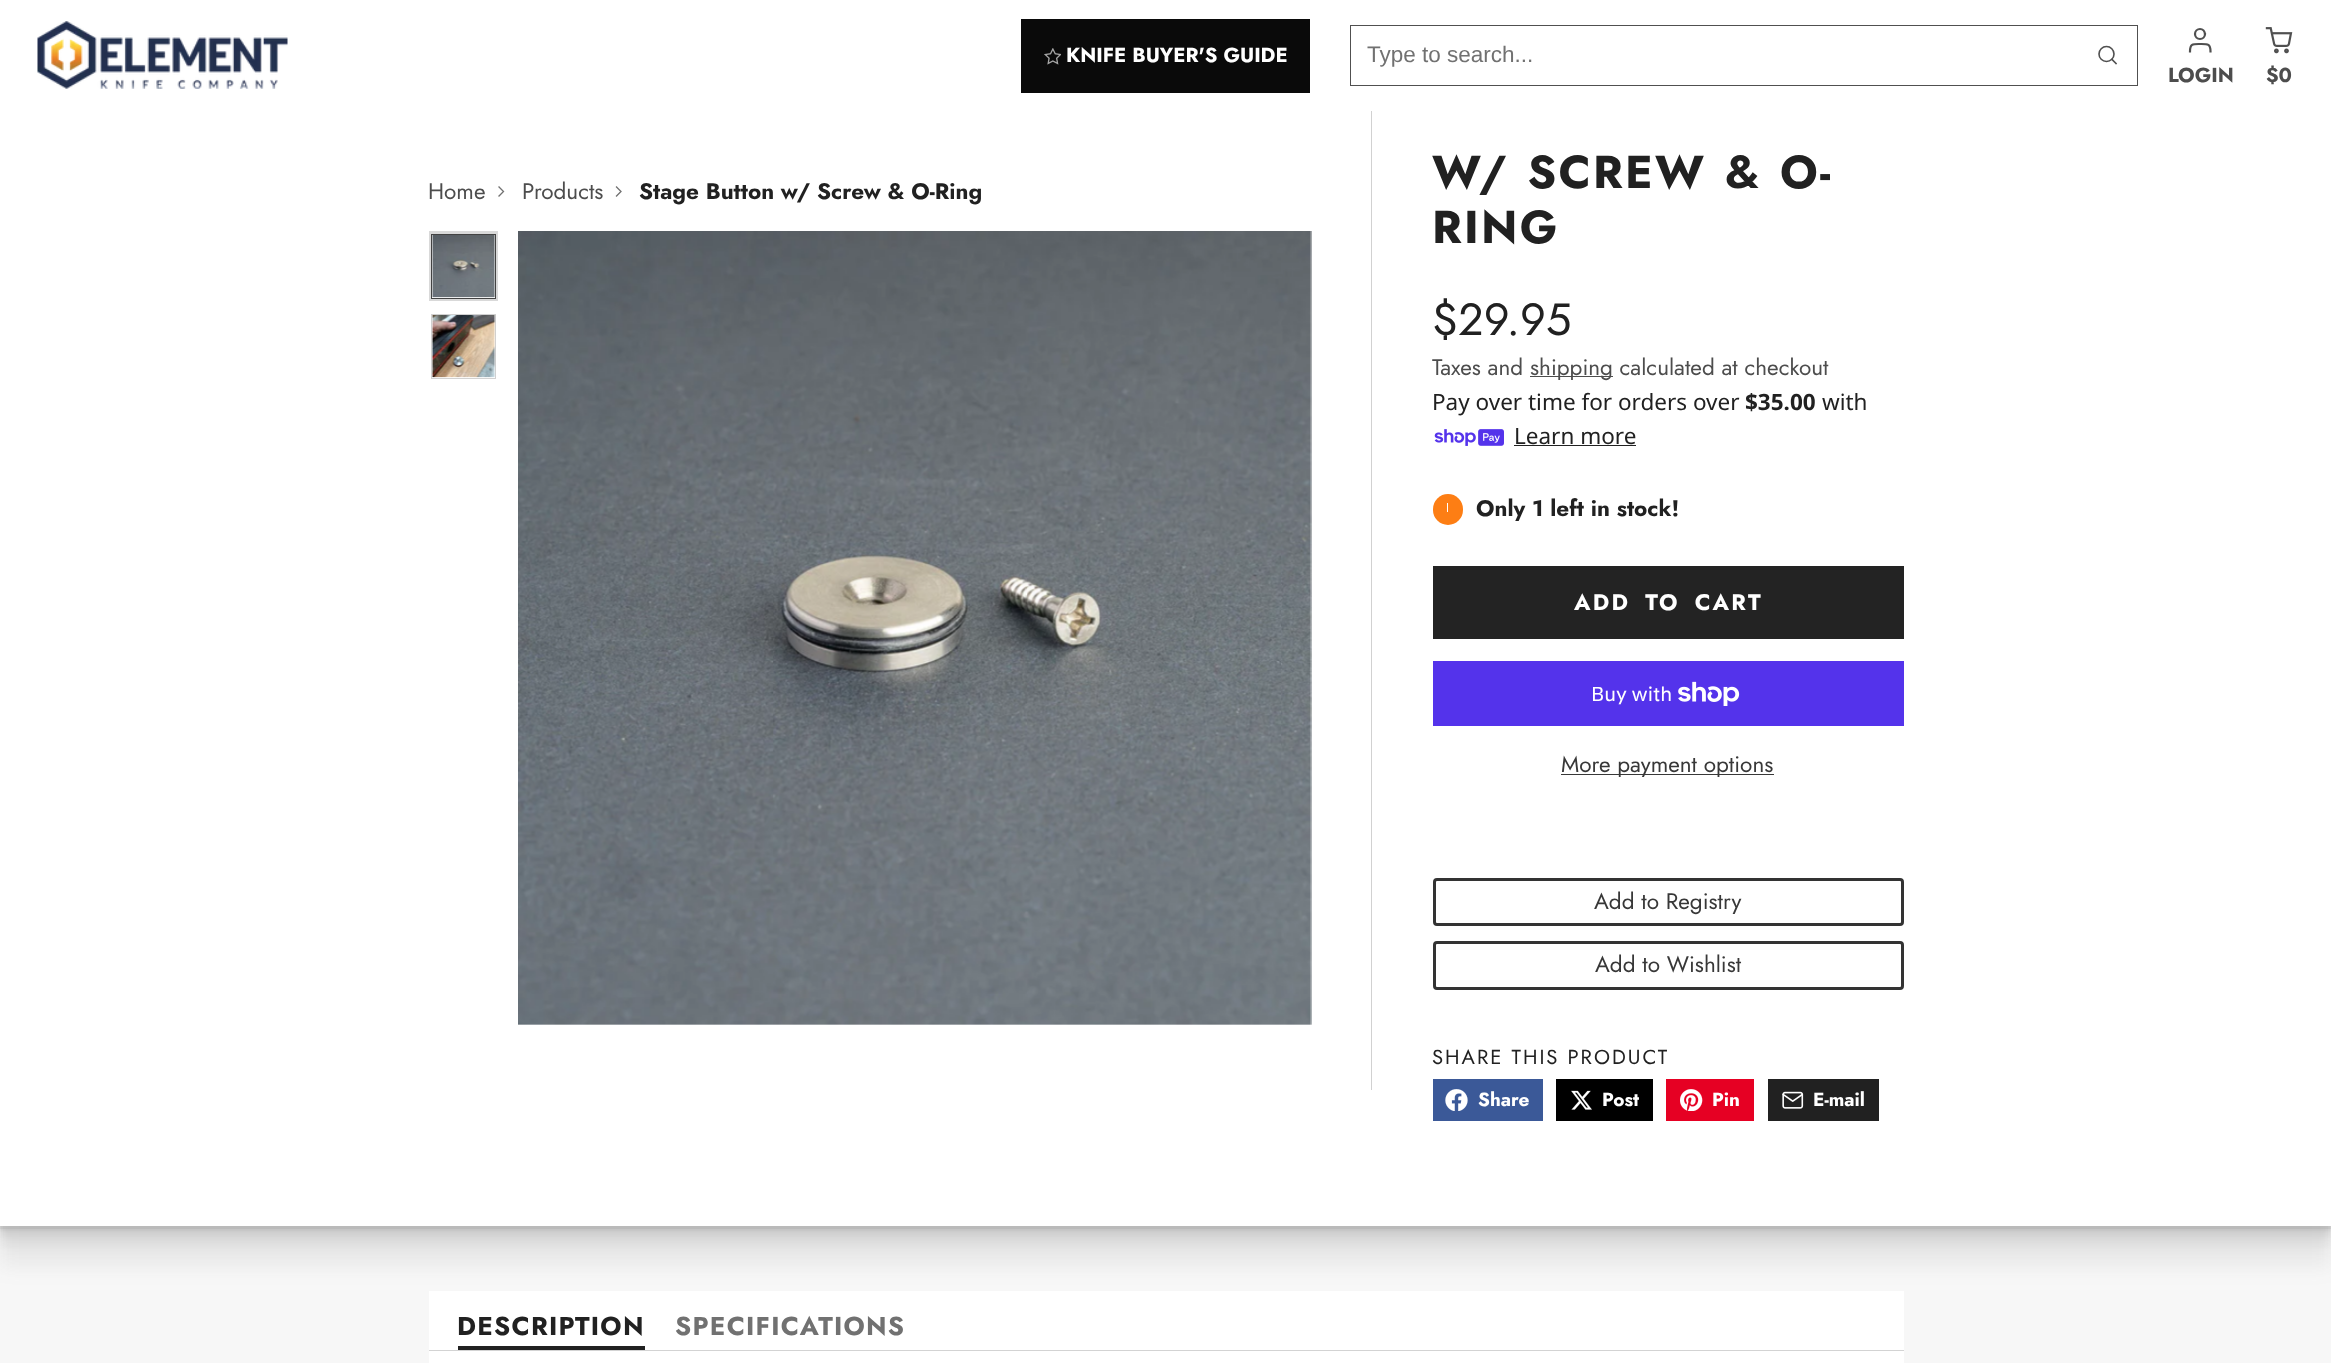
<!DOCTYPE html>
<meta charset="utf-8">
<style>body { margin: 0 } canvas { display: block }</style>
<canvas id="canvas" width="2331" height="1363"></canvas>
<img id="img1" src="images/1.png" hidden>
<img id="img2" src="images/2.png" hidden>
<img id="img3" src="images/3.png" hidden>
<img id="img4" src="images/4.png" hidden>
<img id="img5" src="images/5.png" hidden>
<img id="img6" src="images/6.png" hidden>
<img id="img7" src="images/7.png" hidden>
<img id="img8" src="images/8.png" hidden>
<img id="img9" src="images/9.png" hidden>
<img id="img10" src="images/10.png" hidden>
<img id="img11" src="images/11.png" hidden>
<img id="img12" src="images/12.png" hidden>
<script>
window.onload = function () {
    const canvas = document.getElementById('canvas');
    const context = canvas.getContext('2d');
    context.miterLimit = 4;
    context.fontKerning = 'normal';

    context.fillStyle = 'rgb(247, 247, 247)';
    context.fillRect(0, 0, 2331, 1363);
    context.fillStyle = 'rgba(84, 84, 84, 0.09)';
    context.filter = 'blur(10px)';
    context.beginPath();
    context.rect(0, 6, 2331, 1260);
    context.fill();
    context.filter = 'none';
    context.filter = 'blur(5px)';
    context.beginPath();
    context.rect(0, -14, 2331, 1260);
    context.fill();
    context.filter = 'none';
    context.filter = 'blur(2.5px)';
    context.beginPath();
    context.rect(0, -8, 2331, 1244);
    context.fill();
    context.filter = 'none';
    context.filter = 'blur(1px)';
    context.beginPath();
    context.rect(0, -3, 2331, 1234);
    context.fill();
    context.filter = 'none';
    context.filter = 'blur(0.5px)';
    context.beginPath();
    context.rect(0, -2, 2331, 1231);
    context.fill();
    context.filter = 'none';
    context.fillStyle = 'rgb(255, 255, 255)';
    context.fillRect(0, 111, 2331, 1115);
    context.fillStyle = 'rgb(209, 209, 209)';
    context.fillRect(1371, 110, 1, 980);
    context.fillStyle = 'rgb(255, 255, 255)';
    context.fillRect(0, 0, 2331, 111);
    context.drawImage(document.getElementById('img1'), 37, 21, 251, 68);
    context.fillStyle = 'rgb(10, 10, 10)';
    context.fillRect(1021, 19, 289, 74);
    context.drawImage(document.getElementById('img2'), 1044, 48, 17, 17);
    context.strokeStyle = 'rgb(80, 80, 80)';
    context.strokeRect(1350.5, 25.5, 787, 60);
    context.beginPath();
    context.arc(2106.5, 54, 7.5, 0, 2 * Math.PI);
    context.lineWidth = 1.6;
    context.stroke();
    context.beginPath();
    context.moveTo(2116, 63.5);
    context.lineTo(2112, 59.5);
    context.lineCap = 'square';
    context.stroke();
    context.beginPath();
    context.moveTo(2210.5, 51.5);
    context.bezierCurveTo(2210.5, 43.5, 2207.5, 44, 2200, 44);
    context.bezierCurveTo(2193, 44, 2190, 43.5, 2190, 51.5);
    context.lineWidth = 2.2;
    context.stroke();
    context.beginPath();
    context.arc(2200, 34, 5, 0, 2 * Math.PI);
    context.stroke();
    context.drawImage(document.getElementById('img3'), 2265, 27, 28, 27);
    context.beginPath();
    context.moveTo(499, 196);
    context.lineTo(503.5, 191.5);
    context.lineTo(499, 187);
    context.strokeStyle = 'rgb(113, 113, 113)';
    context.lineWidth = 1.3;
    context.stroke();
    context.beginPath();
    context.moveTo(616.5, 196);
    context.lineTo(621, 191.5);
    context.lineTo(616.5, 187);
    context.stroke();
    context.save();
    context.beginPath();
    context.rect(429, 231, 69, 794);
    context.clip();
    context.strokeStyle = 'rgb(217, 217, 217)';
    context.lineWidth = 3;
    context.strokeRect(430.5, 232.5, 67, 67);
    context.restore();
    context.strokeStyle = 'rgb(67, 67, 67)';
    context.lineWidth = 1;
    context.strokeRect(431.5, 234.5, 64, 64);
    context.drawImage(document.getElementById('img4'), 432, 235, 63, 63);
    context.strokeStyle = 'rgb(209, 209, 209)';
    context.strokeRect(431.5, 314.5, 64, 64);
    context.drawImage(document.getElementById('img5'), 432, 315, 64, 63);
    context.drawImage(document.getElementById('img6'), 518, 231, 794, 794);
    context.fillStyle = 'rgb(77, 77, 77)';
    context.fillRect(1530, 376, 83, 1);
    context.drawImage(document.getElementById('img7'), 1434, 429, 70, 17);
    context.fillStyle = 'rgb(33, 33, 33)';
    context.fillRect(1514, 445, 122, 1);
    context.fillStyle = 'rgb(253, 126, 20)';
    context.beginPath();
    context.roundRect(1433, 494, 30, 31, 15);
    context.fill();
    context.fillStyle = 'rgb(255, 255, 255)';
    context.fillRect(1447, 503, 1, 9);
    context.fillStyle = 'rgb(35, 35, 35)';
    context.fillRect(1433, 566, 471, 73);
    context.fillStyle = 'rgb(84, 51, 235)';
    context.fillRect(1433, 661, 471, 65);
    context.drawImage(document.getElementById('img8'), 1678, 681, 62, 25);
    context.fillStyle = 'rgb(56, 56, 56)';
    context.fillRect(1561, 774, 213, 1);
    context.beginPath();
    context.roundRect(1434.5, 879.5, 468, 45, 2.5);
    context.strokeStyle = 'rgb(51, 51, 51)';
    context.lineWidth = 3;
    context.stroke();
    context.beginPath();
    context.roundRect(1434.5, 942.5, 468, 46, 2.5);
    context.stroke();
    context.fillStyle = 'rgb(59, 89, 152)';
    context.fillRect(1433, 1079, 110, 42);
    context.drawImage(document.getElementById('img9'), 1445, 1089, 23, 22);
    context.fillStyle = 'rgb(0, 0, 0)';
    context.fillRect(1556, 1079, 97, 42);
    context.drawImage(document.getElementById('img10'), 1571, 1090, 21, 20);
    context.fillStyle = 'rgb(230, 0, 35)';
    context.fillRect(1666, 1079, 88, 42);
    context.drawImage(document.getElementById('img11'), 1680, 1089, 23, 22);
    context.fillStyle = 'rgb(33, 33, 33)';
    context.fillRect(1768, 1079, 111, 42);
    context.drawImage(document.getElementById('img12'), 1782, 1091, 22, 18);
    context.fillStyle = 'rgb(255, 255, 255)';
    context.fillRect(429, 1291, 1475, 72);
    context.fillStyle = 'rgb(211, 211, 211)';
    context.fillRect(429, 1350, 1475, 1);
    context.fillStyle = 'rgb(33, 33, 33)';
    context.fillRect(458, 1346, 187, 4);
    context.font = 'bold 20.25px Jost';
    context.fillStyle = 'rgb(255, 255, 255)';
    context.fillText('KNIFE BUYER\'S GUIDE', 1066, 62);
    context.font = '22.5px Liberation Sans';
    context.fillStyle = 'rgb(113, 113, 113)';
    context.fillText('Type to search...', 1367, 62);
    context.font = 'bold 20.25px Jost';
    context.fillStyle = 'rgb(77, 77, 77)';
    context.fillText('LOGIN', 2168, 82);
    context.fillText('$0', 2266, 82);
    context.font = '22.5px Jost';
    context.fillText('Home', 428, 199);
    context.fillText('Products', 522, 199);
    context.font = 'bold 22.5px Jost';
    context.fillStyle = 'rgb(33, 33, 33)';
    context.fillText('Stage Button w/ Screw & O-Ring', 639, 199);
    context.letterSpacing = '2.25px';
    context.wordSpacing = '2.5px';
    context.font = 'bold 46px Jost';
    context.fillText('W/ SCREW & O-', 1432, 188);
    context.wordSpacing = '0px';
    context.fillText('RING', 1432, 243);
    context.letterSpacing = '0px';
    context.font = '45px Jost';
    context.fillText('$29.95', 1432, 335);
    context.font = '22.5px Jost';
    context.fillStyle = 'rgb(77, 77, 77)';
    context.fillText('Taxes and', 1432, 375);
    context.fillText('shipping calculated at checkout', 1530, 375);
    context.font = '22.5px Noto Sans';
    context.fillStyle = 'rgb(33, 33, 33)';
    context.fillText('Pay over time for orders over', 1432, 410);
    context.font = 'bold 22.5px Noto Sans';
    context.fillText('$35.00', 1745, 410);
    context.font = '22.5px Noto Sans';
    context.fillText('with', 1822, 410);
    context.fillText('Learn more', 1514, 444);
    context.font = 'bold 22.5px Jost';
    context.fillText('Only 1 left in stock!', 1476, 516);
    context.letterSpacing = '2.25px';
    context.wordSpacing = '6px';
    context.fillStyle = 'rgb(255, 255, 255)';
    context.fillText('ADD TO CART', 1574, 610);
    context.letterSpacing = '0px';
    context.wordSpacing = '0px';
    context.font = '20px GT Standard';
    context.fillText('Buy with', 1591, 701);
    context.font = '22.5px Jost';
    context.fillStyle = 'rgb(56, 56, 56)';
    context.fillText('More payment options', 1561, 772);
    context.fillText('Add to Registry', 1594, 909);
    context.fillText('Add to Wishlist', 1595, 972);
    context.letterSpacing = '2px';
    context.font = '20.25px Jost';
    context.fillStyle = 'rgb(33, 33, 33)';
    context.fillText('SHARE THIS PRODUCT', 1432, 1064);
    context.letterSpacing = '0px';
    context.font = 'bold 19px Jost';
    context.fillStyle = 'rgb(255, 255, 255)';
    context.fillText('Share', 1478, 1106);
    context.fillText('Post', 1602, 1106);
    context.fillText('Pin', 1712, 1106);
    context.fillText('E-mail', 1813, 1106);
    context.letterSpacing = '1.25px';
    context.font = 'bold 25.9px Jost';
    context.fillStyle = 'rgb(33, 33, 33)';
    context.fillText('DESCRIPTION', 457, 1335);
    context.fillStyle = 'rgb(113, 113, 113)';
    context.fillText('SPECIFICATIONS', 675, 1335);
};
</script>
